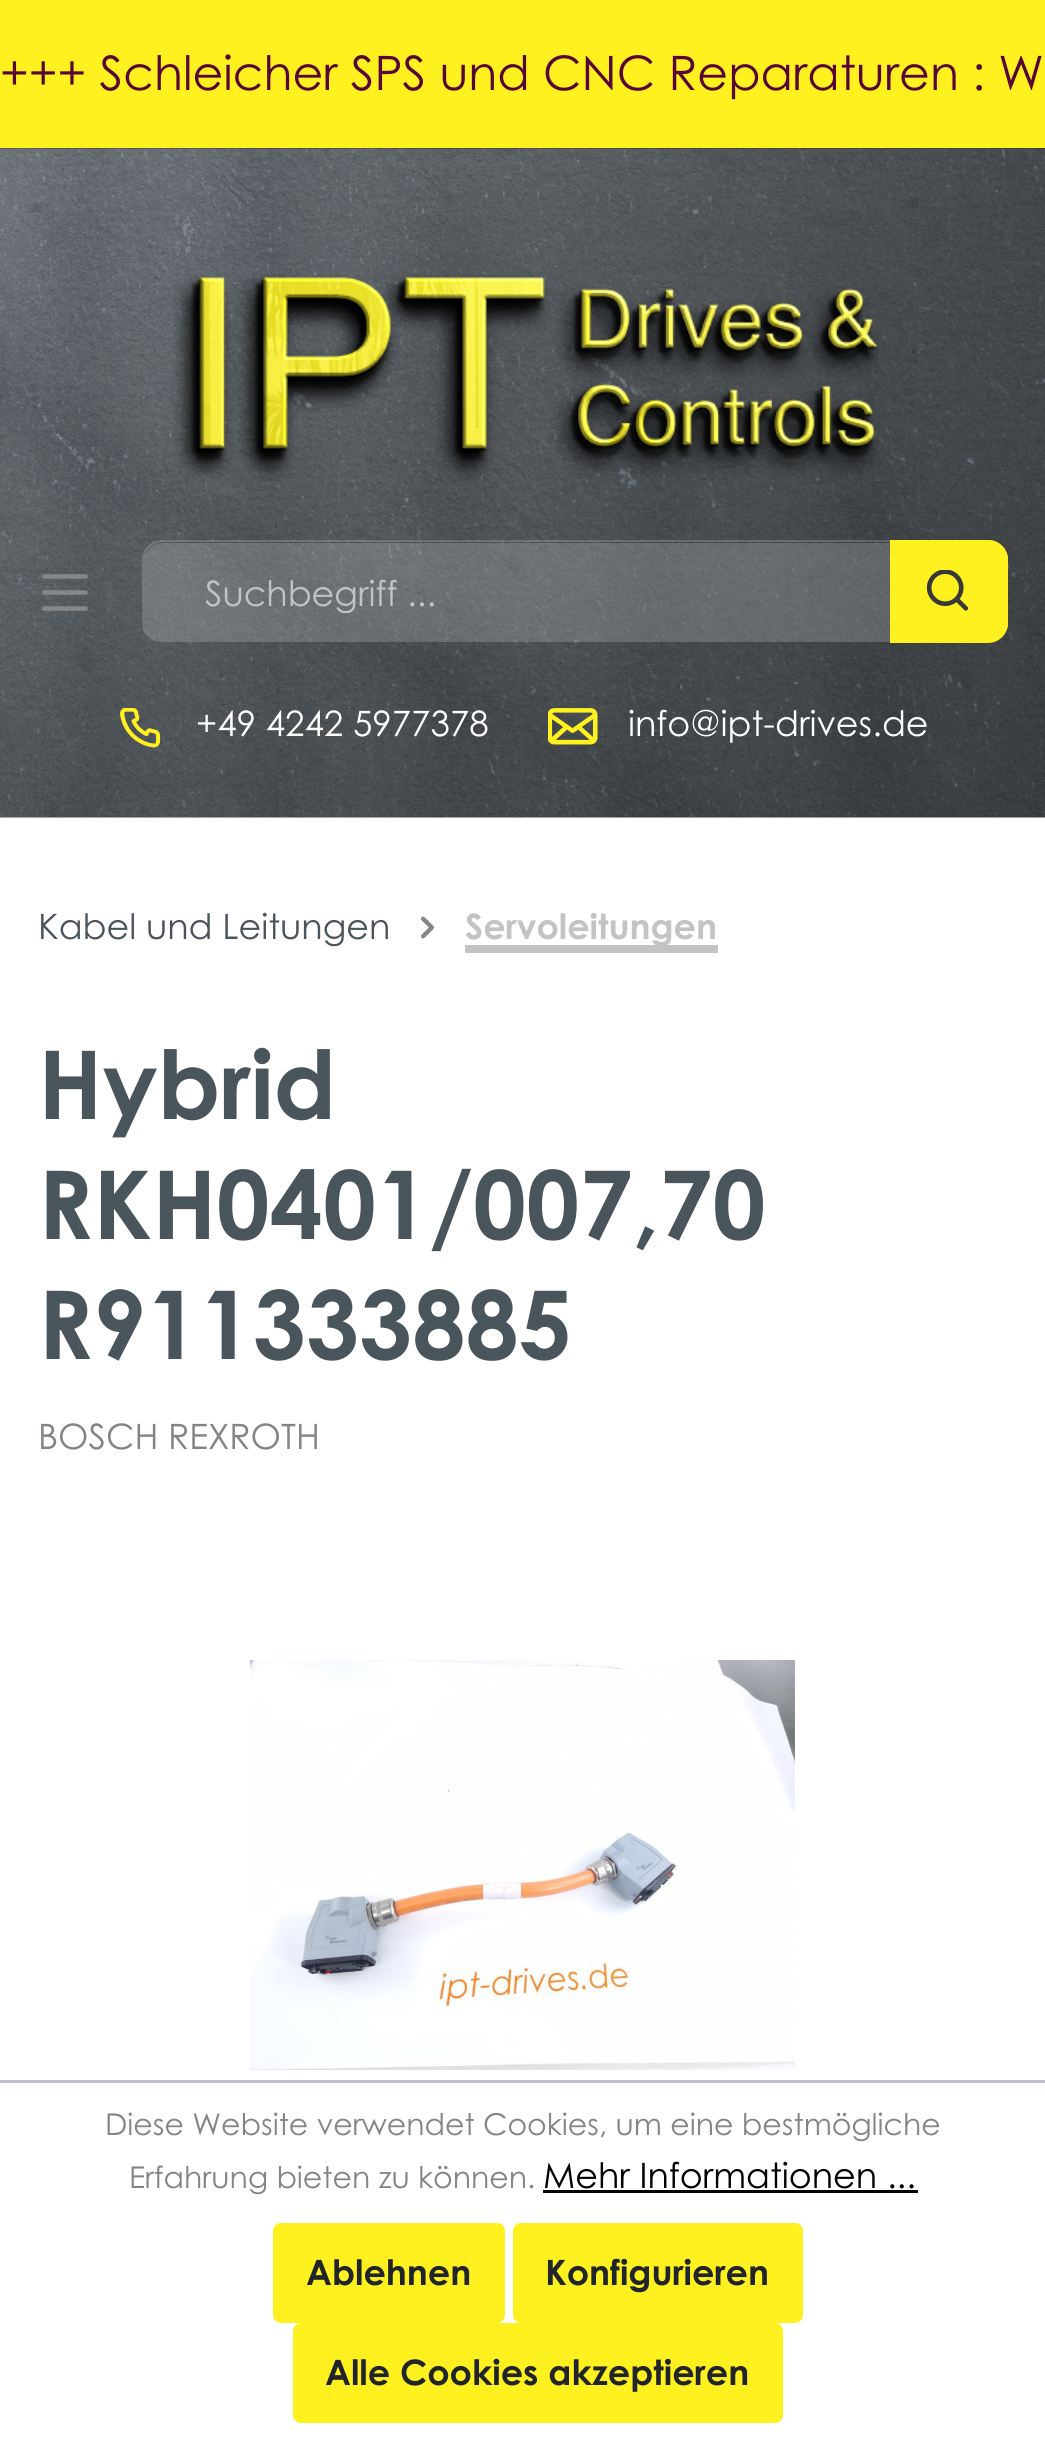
#include <cairo.h>
#include <math.h>
#include <stddef.h>

static cairo_t *ctx;

static void use_color(int r, int g, int b) {
    cairo_set_source_rgb(ctx, r / 255.0, g / 255.0, b / 255.0);
}

static void round_rect(double x, double y, double w, double h, double r) {
    cairo_new_sub_path(ctx);
    cairo_arc(ctx, x + w - r, y + h - r, r, 0, M_PI / 2);
    cairo_arc(ctx, x + r, y + h - r, r, M_PI / 2, M_PI);
    cairo_arc(ctx, x + r, y + r, r, M_PI, 1.5 * M_PI);
    cairo_arc(ctx, x + w - r, y + r, r, 1.5 * M_PI, 2 * M_PI);
    cairo_close_path(ctx);
}

static void picture(const char *path, double x, double y, double w, double h) {
    cairo_surface_t *image = cairo_image_surface_create_from_png(path);
    cairo_save(ctx);
    cairo_set_source_surface(ctx, image, x, y);
    cairo_rectangle(ctx, x, y, w, h);
    cairo_fill(ctx);
    cairo_restore(ctx);
    cairo_surface_destroy(image);
}

int main(void) {
    cairo_surface_t *surface = cairo_image_surface_create(CAIRO_FORMAT_RGB24, 1045, 2442);
    ctx = cairo_create(surface);
    cairo_font_options_t *options = cairo_font_options_create();
    cairo_font_options_set_hint_metrics(options, CAIRO_HINT_METRICS_OFF);
    cairo_font_options_set_hint_style(options, CAIRO_HINT_STYLE_NONE);
    cairo_set_font_options(ctx, options);
    cairo_set_miter_limit(ctx, 4);
    use_color(255, 255, 255);
    cairo_paint(ctx);
    use_color(255, 240, 31);
    cairo_rectangle(ctx, 0, 0, 1045, 148);
    cairo_fill(ctx);
    cairo_select_font_face(ctx, "Century Gothic Medium", CAIRO_FONT_SLANT_NORMAL, CAIRO_FONT_WEIGHT_NORMAL);
    cairo_set_font_size(ctx, 47.5);
    use_color(87, 7, 55);
    cairo_move_to(ctx, 0, 90);
    cairo_show_text(ctx, "+++ Schleicher SPS und CNC Reparaturen : W");
    picture("img1.png", 0, 148, 1045, 670);
    picture("img2.png", 173, 274, 706, 207);
    picture("img3.png", 42, 574, 46, 37);
    cairo_set_source_rgba(ctx, 0.816, 0.816, 0.824, 0.25);
    cairo_new_path(ctx);
    cairo_move_to(ctx, 163, 543);
    cairo_line_to(ctx, 893, 543);
    cairo_line_to(ctx, 893, 640);
    cairo_line_to(ctx, 163, 640);
    cairo_curve_to(ctx, 153, 640, 145, 632, 145, 622);
    cairo_line_to(ctx, 145, 561);
    cairo_curve_to(ctx, 145, 551, 153, 543, 163, 543);
    cairo_close_path(ctx);
    cairo_fill(ctx);
    cairo_set_fill_rule(ctx, CAIRO_FILL_RULE_EVEN_ODD);
    cairo_new_path(ctx);
    cairo_move_to(ctx, 162, 540);
    cairo_line_to(ctx, 892, 540);
    cairo_line_to(ctx, 892, 642);
    cairo_line_to(ctx, 162, 642);
    cairo_curve_to(ctx, 151, 642, 142, 634, 142, 622);
    cairo_line_to(ctx, 142, 560);
    cairo_curve_to(ctx, 142, 549, 151, 540, 162, 540);
    cairo_close_path(ctx);
    cairo_move_to(ctx, 162, 542);
    cairo_line_to(ctx, 892, 542);
    cairo_line_to(ctx, 892, 640);
    cairo_line_to(ctx, 162, 640);
    cairo_curve_to(ctx, 153, 640, 145, 632, 145, 622);
    cairo_line_to(ctx, 145, 560);
    cairo_curve_to(ctx, 145, 550, 153, 542, 162, 542);
    cairo_close_path(ctx);
    cairo_fill(ctx);
    cairo_save(ctx);
    cairo_set_fill_rule(ctx, CAIRO_FILL_RULE_WINDING);
    cairo_rectangle(ctx, 205, 570, 650, 43);
    cairo_clip(ctx);
    cairo_set_font_size(ctx, 35);
    use_color(195, 195, 195);
    cairo_move_to(ctx, 205, 606);
    cairo_show_text(ctx, "Suchbegriff ...");
    cairo_restore(ctx);
    use_color(255, 240, 31);
    cairo_new_path(ctx);
    cairo_move_to(ctx, 890, 540);
    cairo_line_to(ctx, 988, 540);
    cairo_curve_to(ctx, 999, 540, 1008, 549, 1008, 560);
    cairo_line_to(ctx, 1008, 623);
    cairo_curve_to(ctx, 1008, 634, 999, 643, 988, 643);
    cairo_line_to(ctx, 890, 643);
    cairo_close_path(ctx);
    cairo_fill(ctx);
    cairo_new_path(ctx);
    cairo_move_to(ctx, 890, 540);
    cairo_line_to(ctx, 988, 540);
    cairo_curve_to(ctx, 999, 540, 1008, 549, 1008, 560);
    cairo_line_to(ctx, 1008, 622);
    cairo_curve_to(ctx, 1008, 634, 999, 642, 988, 642);
    cairo_line_to(ctx, 890, 642);
    cairo_close_path(ctx);
    cairo_move_to(ctx, 890, 542);
    cairo_line_to(ctx, 988, 542);
    cairo_curve_to(ctx, 997, 542, 1005, 550, 1005, 560);
    cairo_line_to(ctx, 1005, 622);
    cairo_curve_to(ctx, 1005, 632, 997, 640, 988, 640);
    cairo_line_to(ctx, 890, 640);
    cairo_close_path(ctx);
    cairo_fill(ctx);
    picture("img4.png", 926, 570, 43, 41);
    picture("img5.png", 120, 708, 41, 40);
    cairo_set_font_size(ctx, 35);
    use_color(255, 255, 255);
    cairo_move_to(ctx, 196, 736);
    cairo_show_text(ctx, "+49 4242 5977378");
    picture("img6.png", 548, 708, 50, 37);
    cairo_move_to(ctx, 628, 736);
    cairo_show_text(ctx, "info@ipt-drives.de");
    use_color(74, 84, 91);
    cairo_move_to(ctx, 38, 939);
    cairo_show_text(ctx, "Kabel und Leitungen");
    picture("img7.png", 421, 916, 13, 23);
    use_color(195, 195, 195);
    cairo_rectangle(ctx, 465, 945, 253, 8);
    cairo_fill(ctx);
    cairo_select_font_face(ctx, "Century Gothic", CAIRO_FONT_SLANT_NORMAL, CAIRO_FONT_WEIGHT_BOLD);
    cairo_move_to(ctx, 465, 939);
    cairo_show_text(ctx, "Servoleitungen");
    cairo_set_font_size(ctx, 95);
    use_color(74, 84, 91);
    cairo_move_to(ctx, 38, 1119);
    cairo_show_text(ctx, "Hybrid");
    cairo_move_to(ctx, 38, 1239);
    cairo_show_text(ctx, "RKH0401/007,70");
    cairo_move_to(ctx, 38, 1359);
    cairo_show_text(ctx, "R911333885");
    cairo_select_font_face(ctx, "Century Gothic Medium", CAIRO_FONT_SLANT_NORMAL, CAIRO_FONT_WEIGHT_NORMAL);
    cairo_set_font_size(ctx, 35);
    use_color(134, 131, 130);
    cairo_move_to(ctx, 38, 1449);
    cairo_show_text(ctx, "BOSCH REXROTH");
    picture("img8.png", 250, 1660, 545, 410);
    use_color(188, 193, 199);
    cairo_rectangle(ctx, 0, 2080, 1045, 3);
    cairo_fill(ctx);
    cairo_set_font_size(ctx, 30);
    use_color(134, 131, 130);
    cairo_move_to(ctx, 105, 2135);
    cairo_show_text(ctx, "Diese Website verwendet Cookies, um eine bestmögliche");
    cairo_move_to(ctx, 129, 2188);
    cairo_show_text(ctx, "Erfahrung bieten zu können.");
    cairo_set_font_size(ctx, 35);
    use_color(0, 0, 0);
    cairo_move_to(ctx, 543, 2188);
    cairo_show_text(ctx, "Mehr Informationen ...");
    cairo_rectangle(ctx, 543, 2190, 375, 3);
    cairo_fill(ctx);
    use_color(255, 240, 31);
    round_rect(274.5, 2224.5, 229, 97, 6.5);
    cairo_fill_preserve(ctx);
    cairo_set_line_width(ctx, 3);
    cairo_stroke(ctx);
    cairo_select_font_face(ctx, "Century Gothic", CAIRO_FONT_SLANT_NORMAL, CAIRO_FONT_WEIGHT_BOLD);
    use_color(33, 37, 41);
    cairo_move_to(ctx, 306, 2285);
    cairo_show_text(ctx, "Ablehnen");
    use_color(255, 240, 31);
    round_rect(514.5, 2224.5, 287, 97, 6.5);
    cairo_fill_preserve(ctx);
    cairo_stroke(ctx);
    use_color(33, 37, 41);
    cairo_move_to(ctx, 545, 2285);
    cairo_show_text(ctx, "Konfigurieren");
    use_color(255, 240, 31);
    round_rect(294.5, 2324.5, 487, 97, 6.5);
    cairo_fill_preserve(ctx);
    cairo_stroke(ctx);
    use_color(33, 37, 41);
    cairo_move_to(ctx, 325, 2385);
    cairo_show_text(ctx, "Alle Cookies akzeptieren");
    cairo_surface_write_to_png(surface, "result.png");
    cairo_font_options_destroy(options);
    cairo_destroy(ctx);
    cairo_surface_destroy(surface);
    return 0;
}
